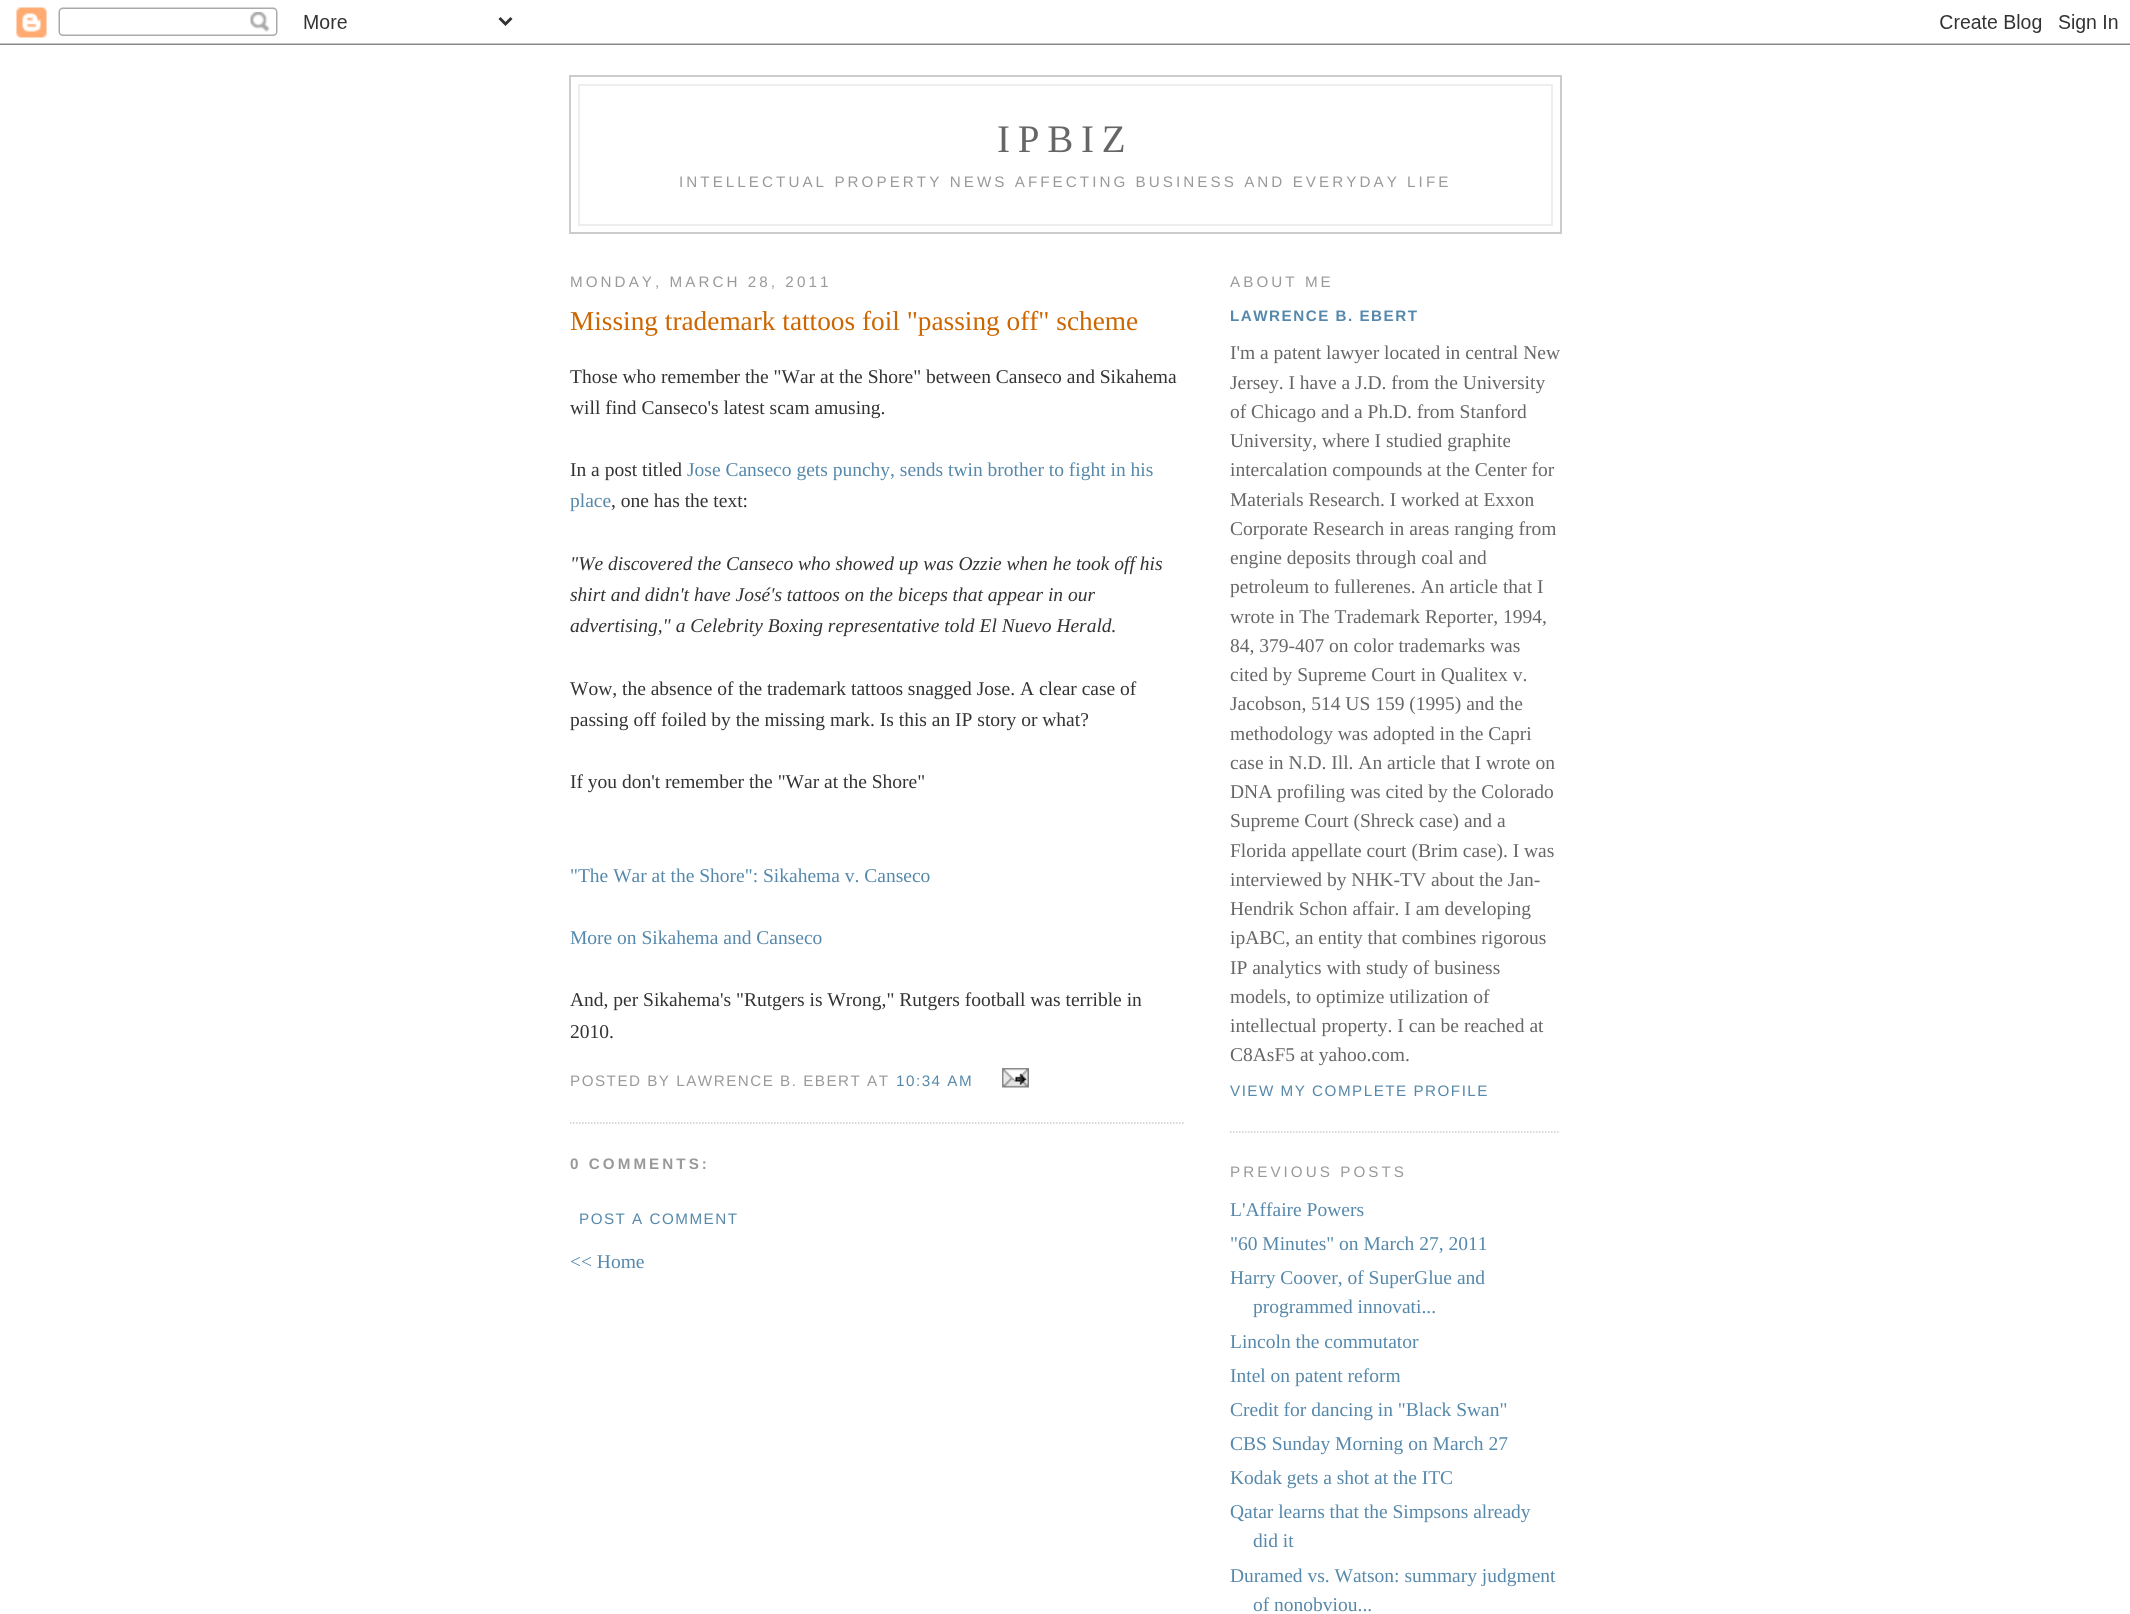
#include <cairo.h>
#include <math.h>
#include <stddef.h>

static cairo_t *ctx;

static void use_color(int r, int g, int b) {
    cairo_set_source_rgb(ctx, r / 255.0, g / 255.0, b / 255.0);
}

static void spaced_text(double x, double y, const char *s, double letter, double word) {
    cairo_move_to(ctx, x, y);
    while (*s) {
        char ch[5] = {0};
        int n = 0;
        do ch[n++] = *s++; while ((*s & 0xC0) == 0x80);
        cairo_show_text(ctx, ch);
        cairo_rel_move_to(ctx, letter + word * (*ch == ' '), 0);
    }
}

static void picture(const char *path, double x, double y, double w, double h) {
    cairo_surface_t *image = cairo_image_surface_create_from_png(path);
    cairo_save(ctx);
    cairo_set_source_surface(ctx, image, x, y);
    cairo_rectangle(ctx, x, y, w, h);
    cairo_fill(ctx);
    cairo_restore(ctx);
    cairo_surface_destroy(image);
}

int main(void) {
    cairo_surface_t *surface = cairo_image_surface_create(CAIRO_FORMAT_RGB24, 2130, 1614);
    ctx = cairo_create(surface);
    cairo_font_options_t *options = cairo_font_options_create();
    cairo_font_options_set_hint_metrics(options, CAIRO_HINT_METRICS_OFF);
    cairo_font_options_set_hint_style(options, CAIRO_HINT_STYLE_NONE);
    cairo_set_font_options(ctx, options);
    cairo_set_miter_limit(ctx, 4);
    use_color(255, 255, 255);
    cairo_paint(ctx);
    picture("img1.png", 0, 7, 2130, 38);
    cairo_rectangle(ctx, 570, 76, 991, 157);
    use_color(204, 204, 204);
    cairo_stroke(ctx);
    use_color(238, 238, 238);
    cairo_rectangle(ctx, 578, 84, 975, 2);
    cairo_fill(ctx);
    cairo_rectangle(ctx, 1551, 84, 2, 141);
    cairo_fill(ctx);
    cairo_rectangle(ctx, 578, 84, 2, 89);
    cairo_fill(ctx);
    cairo_select_font_face(ctx, "Liberation Serif", CAIRO_FONT_SLANT_NORMAL, CAIRO_FONT_WEIGHT_NORMAL);
    cairo_set_font_size(ctx, 39);
    use_color(102, 102, 102);
    spaced_text(997, 152, "IPBIZ", 7.75, 0);
    use_color(238, 238, 238);
    cairo_rectangle(ctx, 578, 224, 975, 2);
    cairo_fill(ctx);
    cairo_rectangle(ctx, 578, 173, 2, 52);
    cairo_fill(ctx);
    cairo_select_font_face(ctx, "Liberation Sans", CAIRO_FONT_SLANT_NORMAL, CAIRO_FONT_WEIGHT_NORMAL);
    cairo_set_font_size(ctx, 15.2);
    use_color(153, 153, 153);
    spaced_text(679, 187, "INTELLECTUAL PROPERTY NEWS AFFECTING BUSINESS AND EVERYDAY LIFE", 3.05, 0);
    spaced_text(570, 287, "MONDAY, MARCH 28, 2011", 3.05, 0);
    cairo_new_path(ctx);
    cairo_move_to(ctx, 570, 1123);
    cairo_line_to(ctx, 1185, 1123);
    use_color(204, 204, 204);
    cairo_set_line_width(ctx, 1.5);
    cairo_set_dash(ctx, (double[]){1.5, 1.5}, 2, 0);
    cairo_stroke(ctx);
    cairo_select_font_face(ctx, "Liberation Serif", CAIRO_FONT_SLANT_NORMAL, CAIRO_FONT_WEIGHT_NORMAL);
    cairo_set_font_size(ctx, 27.3);
    use_color(204, 102, 0);
    cairo_move_to(ctx, 570, 330);
    cairo_show_text(ctx, "Missing trademark tattoos foil \"passing off\" scheme");
    cairo_set_font_size(ctx, 19.5);
    use_color(51, 51, 51);
    cairo_move_to(ctx, 570, 383);
    cairo_show_text(ctx, "Those who remember the \"War at the Shore\" between Canseco and Sikahema");
    cairo_move_to(ctx, 570, 414);
    cairo_show_text(ctx, "will find Canseco's latest scam amusing.");
    cairo_move_to(ctx, 570, 476);
    cairo_show_text(ctx, "In a post titled");
    use_color(85, 136, 170);
    cairo_move_to(ctx, 687, 476);
    cairo_show_text(ctx, "Jose Canseco gets punchy, sends twin brother to fight in his");
    cairo_move_to(ctx, 570, 507);
    cairo_show_text(ctx, "place");
    use_color(51, 51, 51);
    cairo_move_to(ctx, 611, 507);
    cairo_show_text(ctx, ", one has the text:");
    cairo_select_font_face(ctx, "Liberation Serif", CAIRO_FONT_SLANT_ITALIC, CAIRO_FONT_WEIGHT_NORMAL);
    cairo_move_to(ctx, 570, 570);
    cairo_show_text(ctx, "\"We discovered the Canseco who showed up was Ozzie when he took off his");
    cairo_move_to(ctx, 570, 601);
    cairo_show_text(ctx, "shirt and didn't have José's tattoos on the biceps that appear in our");
    cairo_move_to(ctx, 570, 632);
    cairo_show_text(ctx, "advertising,\" a Celebrity Boxing representative told El Nuevo Herald.");
    cairo_select_font_face(ctx, "Liberation Serif", CAIRO_FONT_SLANT_NORMAL, CAIRO_FONT_WEIGHT_NORMAL);
    cairo_move_to(ctx, 570, 695);
    cairo_show_text(ctx, "Wow, the absence of the trademark tattoos snagged Jose. A clear case of");
    cairo_move_to(ctx, 570, 726);
    cairo_show_text(ctx, "passing off foiled by the missing mark. Is this an IP story or what?");
    cairo_move_to(ctx, 570, 788);
    cairo_show_text(ctx, "If you don't remember the \"War at the Shore\"");
    use_color(85, 136, 170);
    cairo_move_to(ctx, 570, 882);
    cairo_show_text(ctx, "\"The War at the Shore\": Sikahema v. Canseco");
    cairo_move_to(ctx, 570, 944);
    cairo_show_text(ctx, "More on Sikahema and Canseco");
    use_color(51, 51, 51);
    cairo_move_to(ctx, 570, 1006);
    cairo_show_text(ctx, "And, per Sikahema's \"Rutgers is Wrong,\" Rutgers football was terrible in");
    cairo_move_to(ctx, 570, 1038);
    cairo_show_text(ctx, "2010.");
    cairo_select_font_face(ctx, "Liberation Sans", CAIRO_FONT_SLANT_NORMAL, CAIRO_FONT_WEIGHT_NORMAL);
    cairo_set_font_size(ctx, 15.2);
    use_color(153, 153, 153);
    spaced_text(570, 1086, "POSTED BY LAWRENCE B. EBERT AT", 1.5, 0);
    use_color(85, 136, 170);
    spaced_text(896, 1086, "10:34 AM", 1.5, 0);
    picture("img2.png", 1002, 1068, 27, 20);
    cairo_select_font_face(ctx, "Liberation Sans", CAIRO_FONT_SLANT_NORMAL, CAIRO_FONT_WEIGHT_BOLD);
    use_color(153, 153, 153);
    spaced_text(570, 1169, "0 COMMENTS:", 3.05, 0);
    cairo_select_font_face(ctx, "Liberation Sans", CAIRO_FONT_SLANT_NORMAL, CAIRO_FONT_WEIGHT_NORMAL);
    use_color(85, 136, 170);
    spaced_text(579, 1224, "POST A COMMENT", 1.5, 0);
    cairo_select_font_face(ctx, "Liberation Serif", CAIRO_FONT_SLANT_NORMAL, CAIRO_FONT_WEIGHT_NORMAL);
    cairo_set_font_size(ctx, 19.5);
    cairo_move_to(ctx, 570, 1268);
    cairo_show_text(ctx, "<< Home");
    cairo_new_path(ctx);
    cairo_move_to(ctx, 1230, 1132);
    cairo_line_to(ctx, 1560, 1132);
    use_color(204, 204, 204);
    cairo_stroke(ctx);
    cairo_select_font_face(ctx, "Liberation Sans", CAIRO_FONT_SLANT_NORMAL, CAIRO_FONT_WEIGHT_NORMAL);
    cairo_set_font_size(ctx, 15.2);
    use_color(153, 153, 153);
    spaced_text(1230, 287, "ABOUT ME", 3.05, 0);
    cairo_select_font_face(ctx, "Liberation Sans", CAIRO_FONT_SLANT_NORMAL, CAIRO_FONT_WEIGHT_BOLD);
    use_color(85, 136, 170);
    spaced_text(1230, 321, "LAWRENCE B. EBERT", 1.5, 0);
    cairo_select_font_face(ctx, "Liberation Serif", CAIRO_FONT_SLANT_NORMAL, CAIRO_FONT_WEIGHT_NORMAL);
    cairo_set_font_size(ctx, 19.5);
    use_color(102, 102, 102);
    cairo_move_to(ctx, 1230, 359);
    cairo_show_text(ctx, "I'm a patent lawyer located in central New");
    cairo_move_to(ctx, 1230, 389);
    cairo_show_text(ctx, "Jersey. I have a J.D. from the University");
    cairo_move_to(ctx, 1230, 418);
    cairo_show_text(ctx, "of Chicago and a Ph.D. from Stanford");
    cairo_move_to(ctx, 1230, 447);
    cairo_show_text(ctx, "University, where I studied graphite");
    cairo_move_to(ctx, 1230, 476);
    cairo_show_text(ctx, "intercalation compounds at the Center for");
    cairo_move_to(ctx, 1230, 506);
    cairo_show_text(ctx, "Materials Research. I worked at Exxon");
    cairo_move_to(ctx, 1230, 535);
    cairo_show_text(ctx, "Corporate Research in areas ranging from");
    cairo_move_to(ctx, 1230, 564);
    cairo_show_text(ctx, "engine deposits through coal and");
    cairo_move_to(ctx, 1230, 593);
    cairo_show_text(ctx, "petroleum to fullerenes. An article that I");
    cairo_move_to(ctx, 1230, 623);
    cairo_show_text(ctx, "wrote in The Trademark Reporter, 1994,");
    cairo_move_to(ctx, 1230, 652);
    cairo_show_text(ctx, "84, 379-407 on color trademarks was");
    cairo_move_to(ctx, 1230, 681);
    cairo_show_text(ctx, "cited by Supreme Court in Qualitex v.");
    cairo_move_to(ctx, 1230, 710);
    cairo_show_text(ctx, "Jacobson, 514 US 159 (1995) and the");
    cairo_move_to(ctx, 1230, 740);
    cairo_show_text(ctx, "methodology was adopted in the Capri");
    cairo_move_to(ctx, 1230, 769);
    cairo_show_text(ctx, "case in N.D. Ill. An article that I wrote on");
    cairo_move_to(ctx, 1230, 798);
    cairo_show_text(ctx, "DNA profiling was cited by the Colorado");
    cairo_move_to(ctx, 1230, 827);
    cairo_show_text(ctx, "Supreme Court (Shreck case) and a");
    cairo_move_to(ctx, 1230, 857);
    cairo_show_text(ctx, "Florida appellate court (Brim case). I was");
    cairo_move_to(ctx, 1230, 886);
    cairo_show_text(ctx, "interviewed by NHK-TV about the Jan-");
    cairo_move_to(ctx, 1230, 915);
    cairo_show_text(ctx, "Hendrik Schon affair. I am developing");
    cairo_move_to(ctx, 1230, 944);
    cairo_show_text(ctx, "ipABC, an entity that combines rigorous");
    cairo_move_to(ctx, 1230, 974);
    cairo_show_text(ctx, "IP analytics with study of business");
    cairo_move_to(ctx, 1230, 1003);
    cairo_show_text(ctx, "models, to optimize utilization of");
    cairo_move_to(ctx, 1230, 1032);
    cairo_show_text(ctx, "intellectual property. I can be reached at");
    cairo_move_to(ctx, 1230, 1061);
    cairo_show_text(ctx, "C8AsF5 at yahoo.com.");
    cairo_select_font_face(ctx, "Liberation Sans", CAIRO_FONT_SLANT_NORMAL, CAIRO_FONT_WEIGHT_NORMAL);
    cairo_set_font_size(ctx, 15.2);
    use_color(85, 136, 170);
    spaced_text(1230, 1096, "VIEW MY COMPLETE PROFILE", 1.5, 0);
    use_color(153, 153, 153);
    spaced_text(1230, 1177, "PREVIOUS POSTS", 3.05, 0);
    cairo_select_font_face(ctx, "Liberation Serif", CAIRO_FONT_SLANT_NORMAL, CAIRO_FONT_WEIGHT_NORMAL);
    cairo_set_font_size(ctx, 19.5);
    use_color(85, 136, 170);
    cairo_move_to(ctx, 1230, 1216);
    cairo_show_text(ctx, "L'Affaire Powers");
    cairo_move_to(ctx, 1230, 1250);
    cairo_show_text(ctx, "\"60 Minutes\" on March 27, 2011");
    cairo_move_to(ctx, 1230, 1284);
    cairo_show_text(ctx, "Harry Coover, of SuperGlue and");
    cairo_move_to(ctx, 1253, 1313);
    cairo_show_text(ctx, "programmed innovati...");
    cairo_move_to(ctx, 1230, 1348);
    cairo_show_text(ctx, "Lincoln the commutator");
    cairo_move_to(ctx, 1230, 1382);
    cairo_show_text(ctx, "Intel on patent reform");
    cairo_move_to(ctx, 1230, 1416);
    cairo_show_text(ctx, "Credit for dancing in \"Black Swan\"");
    cairo_move_to(ctx, 1230, 1450);
    cairo_show_text(ctx, "CBS Sunday Morning on March 27");
    cairo_move_to(ctx, 1230, 1484);
    cairo_show_text(ctx, "Kodak gets a shot at the ITC");
    cairo_move_to(ctx, 1230, 1518);
    cairo_show_text(ctx, "Qatar learns that the Simpsons already");
    cairo_move_to(ctx, 1253, 1547);
    cairo_show_text(ctx, "did it");
    cairo_move_to(ctx, 1230, 1582);
    cairo_show_text(ctx, "Duramed vs. Watson: summary judgment");
    cairo_move_to(ctx, 1253, 1611);
    cairo_show_text(ctx, "of nonobviou...");
    cairo_surface_write_to_png(surface, "result.png");
    cairo_font_options_destroy(options);
    cairo_destroy(ctx);
    cairo_surface_destroy(surface);
    return 0;
}
